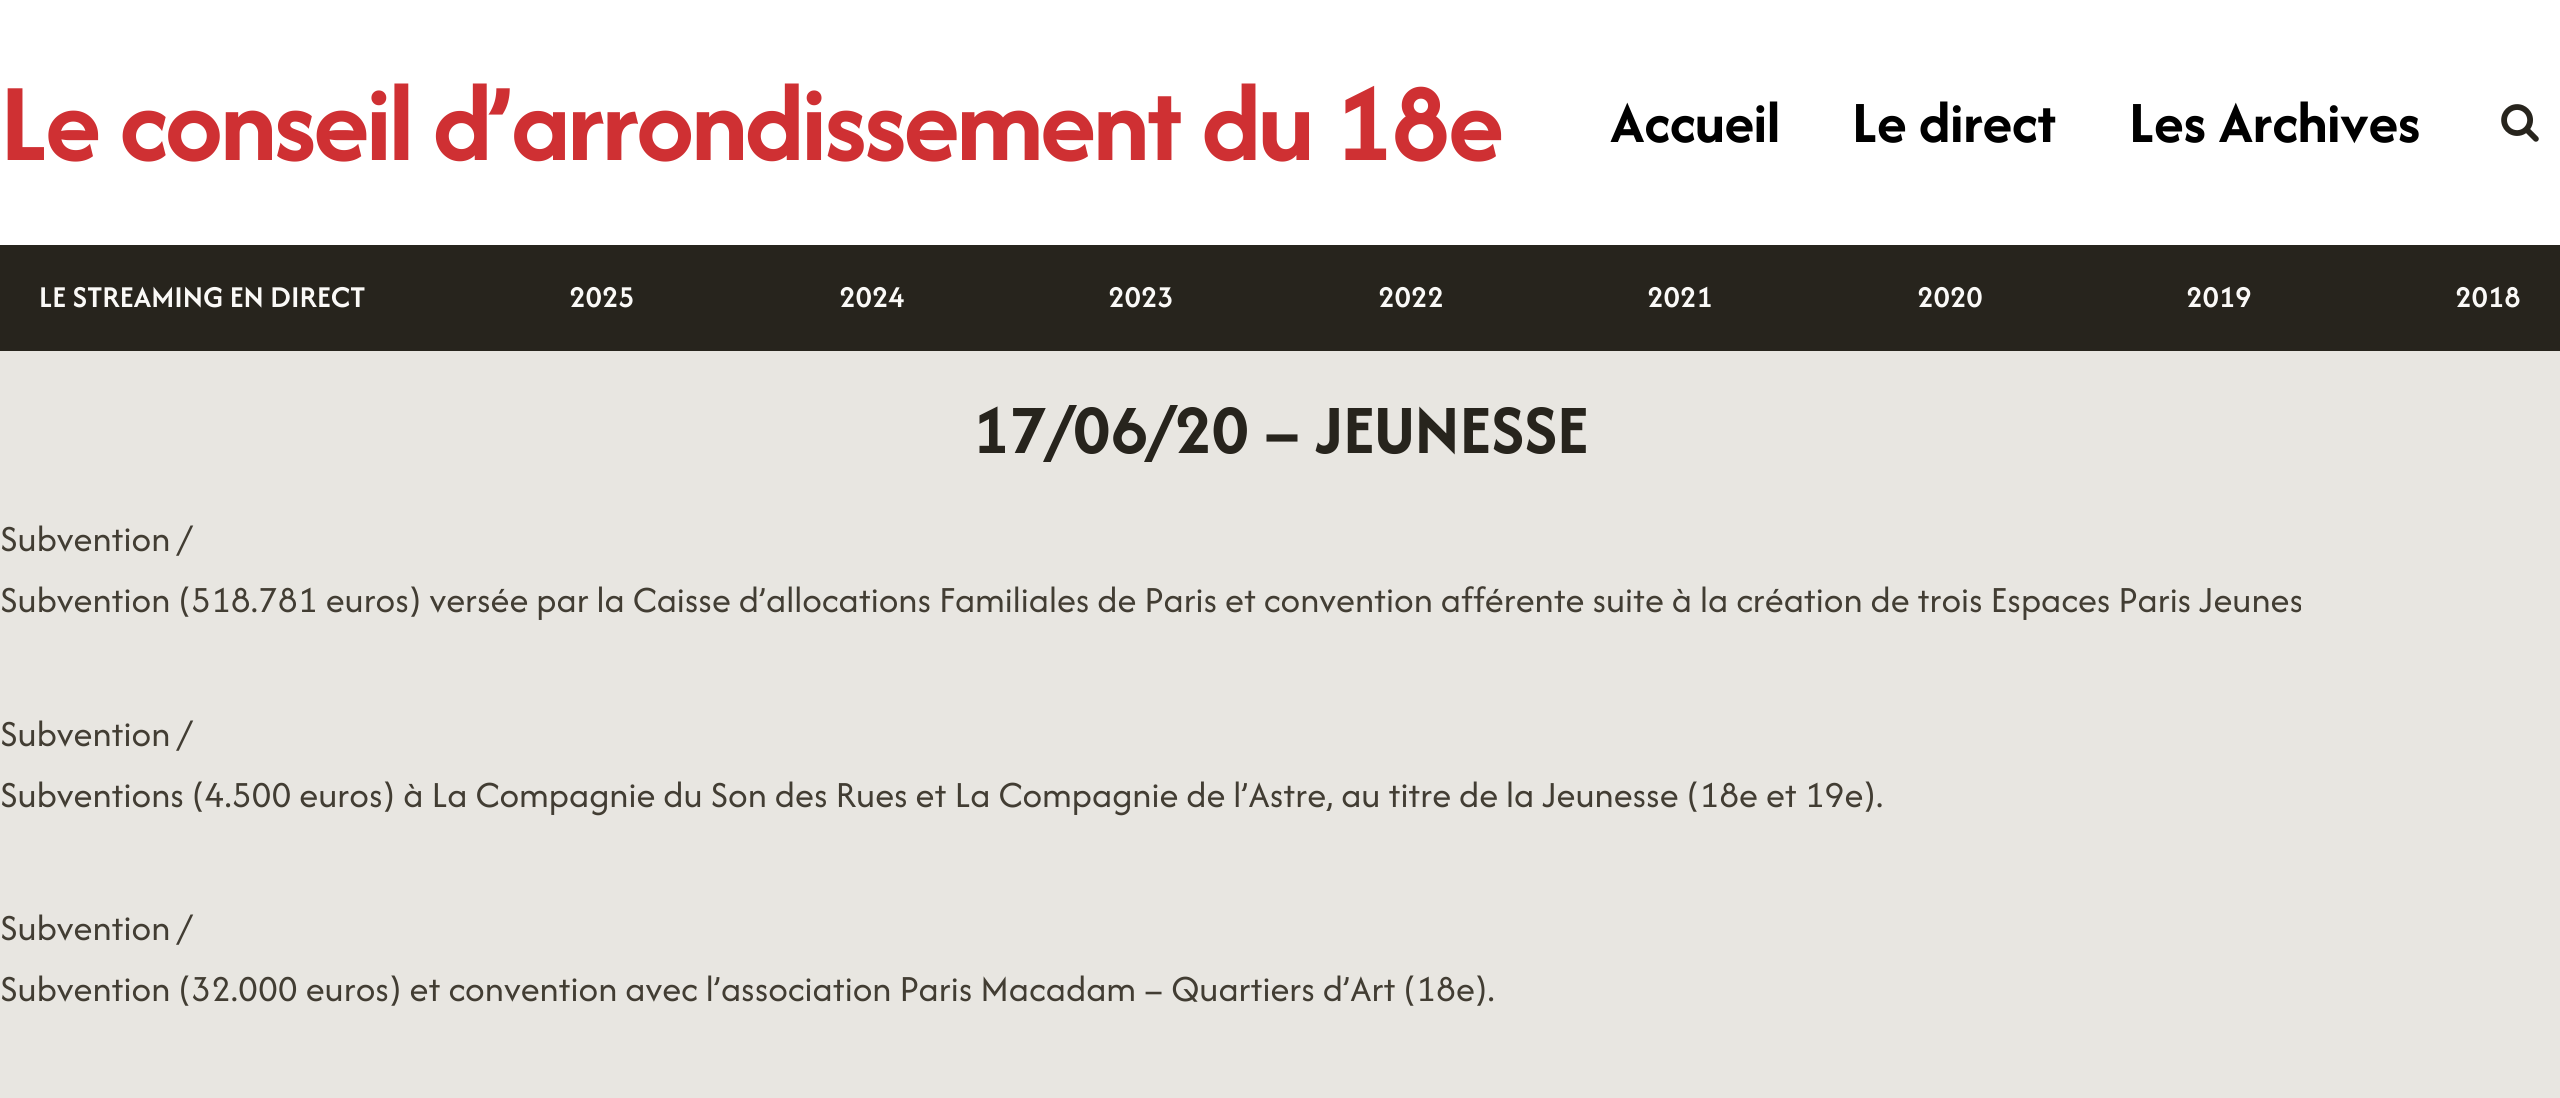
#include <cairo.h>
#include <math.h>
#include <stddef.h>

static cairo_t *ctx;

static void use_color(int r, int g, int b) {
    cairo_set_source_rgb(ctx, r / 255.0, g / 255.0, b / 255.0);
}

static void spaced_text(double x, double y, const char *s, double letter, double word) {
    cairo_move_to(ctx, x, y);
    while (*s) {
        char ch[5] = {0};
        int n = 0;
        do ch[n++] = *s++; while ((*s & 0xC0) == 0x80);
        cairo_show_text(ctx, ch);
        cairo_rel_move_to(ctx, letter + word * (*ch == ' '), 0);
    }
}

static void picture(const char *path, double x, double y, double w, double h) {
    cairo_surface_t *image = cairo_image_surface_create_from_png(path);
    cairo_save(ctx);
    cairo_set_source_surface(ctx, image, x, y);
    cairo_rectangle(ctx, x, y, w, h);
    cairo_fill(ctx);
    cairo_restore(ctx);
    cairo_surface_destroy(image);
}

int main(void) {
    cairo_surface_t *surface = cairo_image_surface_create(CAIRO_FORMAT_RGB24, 2560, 1098);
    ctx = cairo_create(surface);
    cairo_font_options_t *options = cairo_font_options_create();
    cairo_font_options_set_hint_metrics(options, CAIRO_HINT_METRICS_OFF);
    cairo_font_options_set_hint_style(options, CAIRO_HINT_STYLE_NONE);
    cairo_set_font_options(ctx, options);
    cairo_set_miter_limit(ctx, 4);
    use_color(232, 230, 225);
    cairo_paint(ctx);
    use_color(255, 255, 255);
    cairo_rectangle(ctx, 0, 0, 2560, 245);
    cairo_fill(ctx);
    cairo_select_font_face(ctx, "Afacad", CAIRO_FONT_SLANT_NORMAL, CAIRO_FONT_WEIGHT_BOLD);
    cairo_set_font_size(ctx, 114.75);
    use_color(207, 48, 51);
    spaced_text(0, 160, "Le conseil d’arrondissement du 18e", -2.3, 0);
    cairo_set_font_size(ctx, 60.75);
    use_color(0, 0, 0);
    cairo_move_to(ctx, 1610, 142);
    cairo_show_text(ctx, "Accueil");
    cairo_move_to(ctx, 1852, 142);
    cairo_show_text(ctx, "Le direct");
    cairo_move_to(ctx, 2129, 142);
    cairo_show_text(ctx, "Les Archives");
    picture("img1.png", 2501, 104, 38, 38);
    use_color(39, 36, 29);
    cairo_rectangle(ctx, 0, 245, 2560, 106);
    cairo_fill(ctx);
    cairo_select_font_face(ctx, "Afacad SemiBold", CAIRO_FONT_SLANT_NORMAL, CAIRO_FONT_WEIGHT_NORMAL);
    cairo_set_font_size(ctx, 31.5);
    use_color(250, 249, 247);
    cairo_move_to(ctx, 39, 307);
    cairo_show_text(ctx, "LE STREAMING EN DIRECT");
    cairo_move_to(ctx, 569, 307);
    cairo_show_text(ctx, "2025");
    cairo_move_to(ctx, 839, 307);
    cairo_show_text(ctx, "2024");
    cairo_move_to(ctx, 1108, 307);
    cairo_show_text(ctx, "2023");
    cairo_move_to(ctx, 1378, 307);
    cairo_show_text(ctx, "2022");
    cairo_move_to(ctx, 1647, 307);
    cairo_show_text(ctx, "2021");
    cairo_move_to(ctx, 1917, 307);
    cairo_show_text(ctx, "2020");
    cairo_move_to(ctx, 2186, 307);
    cairo_show_text(ctx, "2019");
    cairo_move_to(ctx, 2455, 307);
    cairo_show_text(ctx, "2018");
    cairo_select_font_face(ctx, "Afacad", CAIRO_FONT_SLANT_NORMAL, CAIRO_FONT_WEIGHT_BOLD);
    cairo_set_font_size(ctx, 72);
    use_color(39, 36, 29);
    cairo_move_to(ctx, 972, 453);
    cairo_show_text(ctx, "17/06/20 – JEUNESSE");
    cairo_select_font_face(ctx, "Afacad", CAIRO_FONT_SLANT_NORMAL, CAIRO_FONT_WEIGHT_NORMAL);
    cairo_set_font_size(ctx, 38.25);
    use_color(66, 61, 51);
    cairo_move_to(ctx, 0, 551);
    cairo_show_text(ctx, "Subvention /");
    cairo_move_to(ctx, 0, 612);
    cairo_show_text(ctx, "Subvention (518.781 euros) versée par la Caisse d’allocations Familiales de Paris et convention afférente suite à la création de trois Espaces Paris Jeunes");
    cairo_move_to(ctx, 0, 746);
    cairo_show_text(ctx, "Subvention /");
    cairo_move_to(ctx, 0, 807);
    cairo_show_text(ctx, "Subventions (4.500 euros) à La Compagnie du Son des Rues et La Compagnie de l’Astre, au titre de la Jeunesse (18e et 19e).");
    cairo_move_to(ctx, 0, 940);
    cairo_show_text(ctx, "Subvention /");
    cairo_move_to(ctx, 0, 1001);
    cairo_show_text(ctx, "Subvention (32.000 euros) et convention avec l’association Paris Macadam – Quartiers d’Art (18e).");
    cairo_surface_write_to_png(surface, "result.png");
    cairo_font_options_destroy(options);
    cairo_destroy(ctx);
    cairo_surface_destroy(surface);
    return 0;
}
